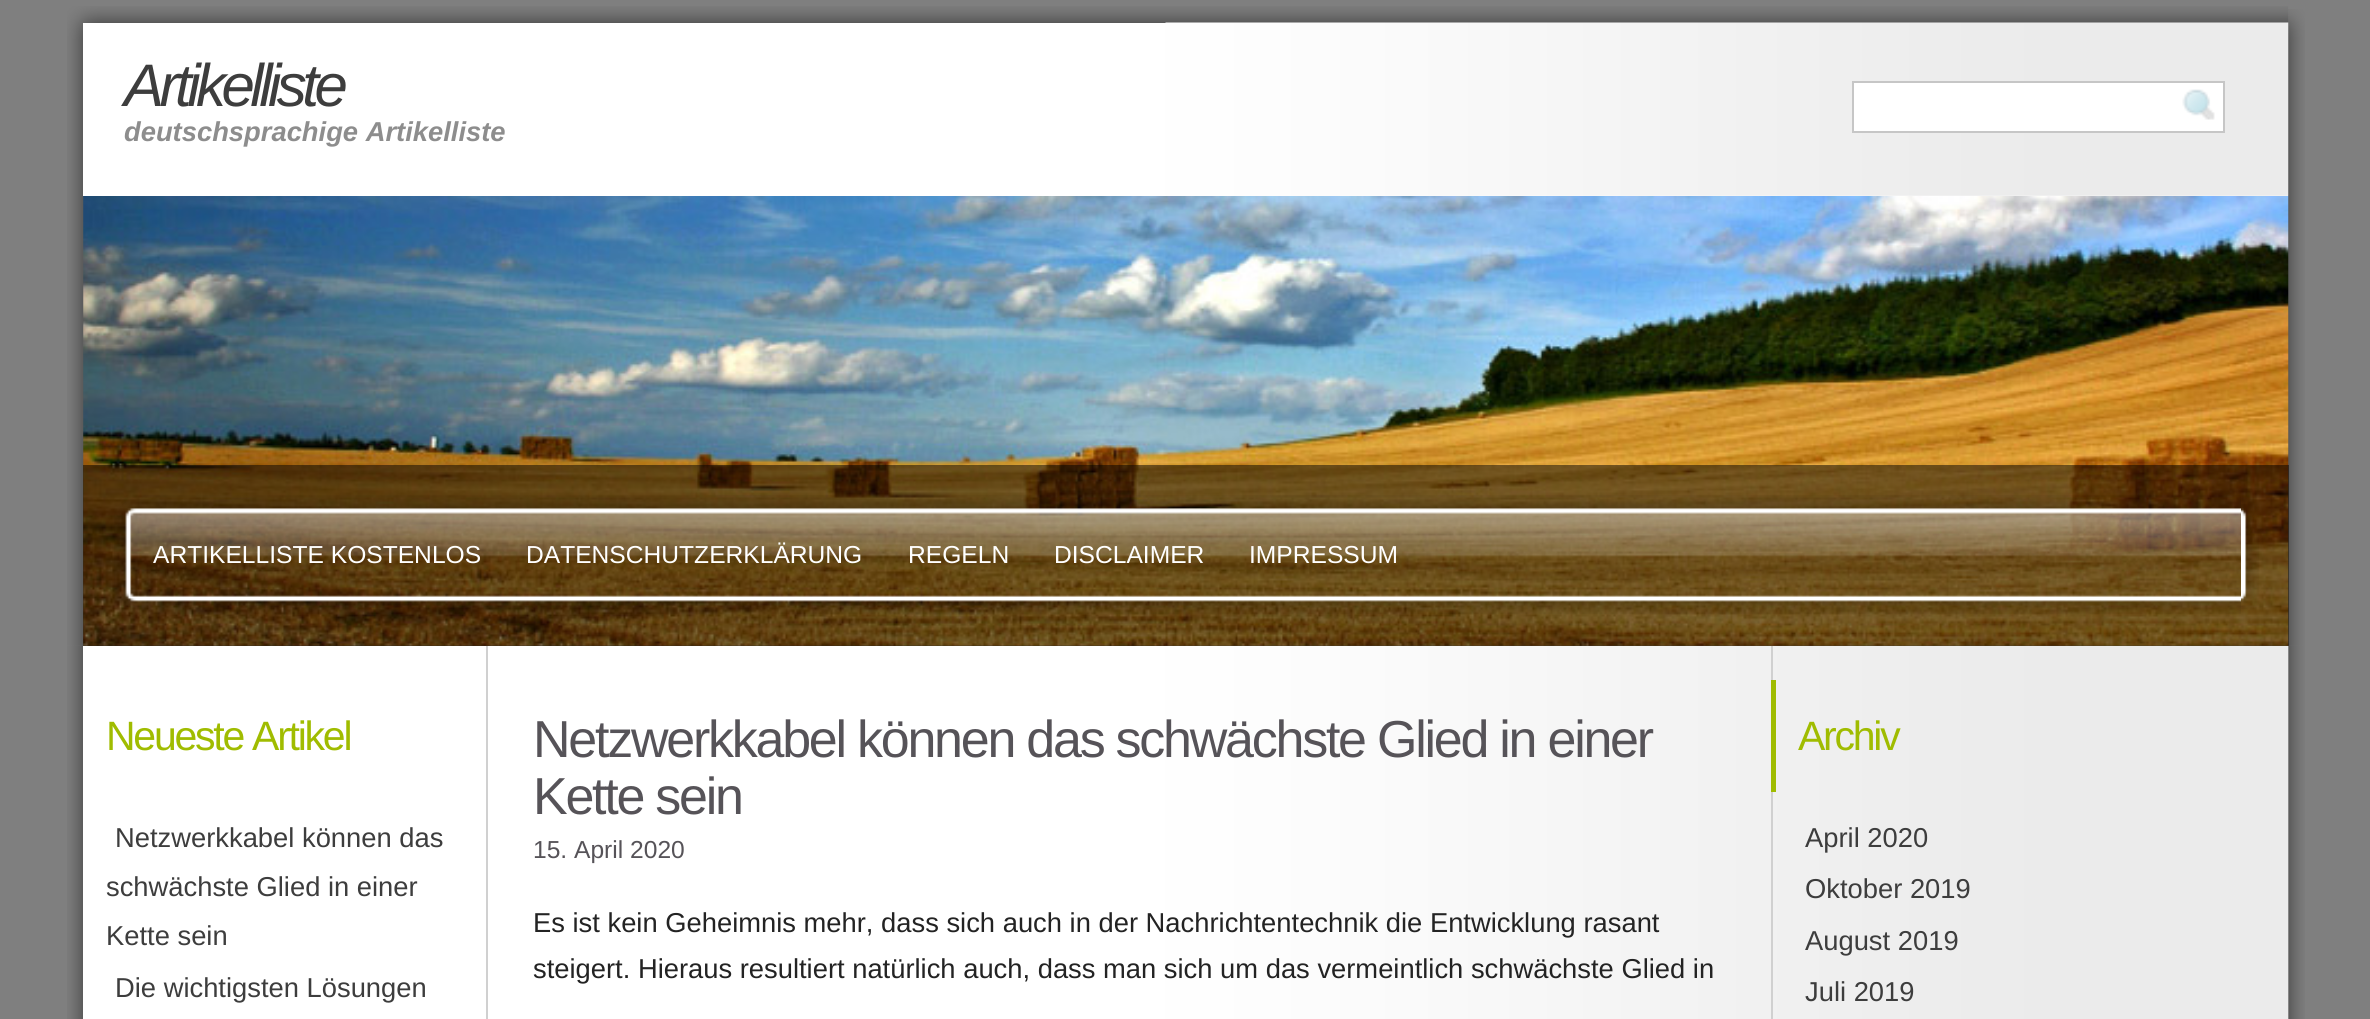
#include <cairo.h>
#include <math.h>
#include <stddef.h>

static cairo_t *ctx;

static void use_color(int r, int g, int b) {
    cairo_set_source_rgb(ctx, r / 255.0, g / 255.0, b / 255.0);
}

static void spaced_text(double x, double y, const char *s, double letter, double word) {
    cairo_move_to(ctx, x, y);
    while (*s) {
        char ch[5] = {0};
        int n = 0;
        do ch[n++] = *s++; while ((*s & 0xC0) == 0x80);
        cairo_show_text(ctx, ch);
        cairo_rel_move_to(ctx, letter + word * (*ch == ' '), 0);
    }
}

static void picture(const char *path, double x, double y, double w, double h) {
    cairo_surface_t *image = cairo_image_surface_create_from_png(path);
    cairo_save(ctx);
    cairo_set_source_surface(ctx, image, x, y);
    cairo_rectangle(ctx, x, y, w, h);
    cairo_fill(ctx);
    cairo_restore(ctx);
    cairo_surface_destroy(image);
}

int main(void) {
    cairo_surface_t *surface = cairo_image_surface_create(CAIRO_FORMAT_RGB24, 2370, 1019);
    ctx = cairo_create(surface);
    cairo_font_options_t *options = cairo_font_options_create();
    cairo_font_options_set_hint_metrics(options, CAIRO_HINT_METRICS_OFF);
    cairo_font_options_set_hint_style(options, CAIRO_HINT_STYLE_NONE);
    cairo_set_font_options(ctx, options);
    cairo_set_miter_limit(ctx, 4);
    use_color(127, 127, 127);
    cairo_paint(ctx);
    picture("img1.png", 2288, 9, 17, 637);
    picture("img2.png", 67, 6, 2222, 640);
    picture("img8.png", 2288, 645, 17, 374);
    picture("img9.png", 67, 645, 39, 374);
    use_color(255, 255, 255);
    cairo_rectangle(ctx, 83, 646, 1083, 373);
    cairo_fill(ctx);
    picture("img10.png", 1165, 645, 1124, 374);
    picture("img5.png", 83, 195, 2206, 451);
    cairo_rectangle(ctx, 83, 23, 2205, 173);
    cairo_fill(ctx);
    picture("img3.png", 1165, 22, 1124, 174);
    cairo_select_font_face(ctx, "Liberation Sans", CAIRO_FONT_SLANT_ITALIC, CAIRO_FONT_WEIGHT_NORMAL);
    cairo_set_font_size(ctx, 60);
    use_color(61, 61, 61);
    spaced_text(124, 106, "Artikelliste", -4.5, 0);
    use_color(255, 255, 255);
    cairo_rectangle(ctx, 1854, 83, 369, 48);
    cairo_fill(ctx);
    picture("img4.png", 2182, 89, 33, 31);
    cairo_rectangle(ctx, 1853, 82, 371, 50);
    use_color(198, 198, 198);
    cairo_stroke(ctx);
    cairo_select_font_face(ctx, "Liberation Sans", CAIRO_FONT_SLANT_ITALIC, CAIRO_FONT_WEIGHT_BOLD);
    cairo_set_font_size(ctx, 27.35);
    use_color(141, 141, 141);
    cairo_move_to(ctx, 124, 141);
    cairo_show_text(ctx, "deutschsprachige Artikelliste");
    cairo_set_source_rgba(ctx, 0, 0, 0, 0.5);
    cairo_rectangle(ctx, 83, 465, 2206, 181);
    cairo_fill(ctx);
    picture("img6.png", 114, 495, 2127, 119);
    cairo_select_font_face(ctx, "Liberation Sans", CAIRO_FONT_SLANT_NORMAL, CAIRO_FONT_WEIGHT_NORMAL);
    cairo_set_font_size(ctx, 24.6);
    use_color(255, 255, 255);
    cairo_move_to(ctx, 153, 563);
    cairo_show_text(ctx, "ARTIKELLISTE KOSTENLOS");
    cairo_move_to(ctx, 526, 563);
    cairo_show_text(ctx, "DATENSCHUTZERKLÄRUNG");
    cairo_move_to(ctx, 908, 563);
    cairo_show_text(ctx, "REGELN");
    cairo_move_to(ctx, 1054, 563);
    cairo_show_text(ctx, "DISCLAIMER");
    cairo_move_to(ctx, 1249, 563);
    cairo_show_text(ctx, "IMPRESSUM");
    picture("img7.png", 2241, 504, 18, 105);
    use_color(208, 208, 208);
    cairo_rectangle(ctx, 486, 646, 2, 373);
    cairo_fill(ctx);
    cairo_set_font_size(ctx, 41);
    use_color(160, 188, 0);
    spaced_text(106, 750, "Neueste Artikel", -2.25, 0);
    cairo_set_font_size(ctx, 27.35);
    use_color(61, 61, 61);
    cairo_move_to(ctx, 115, 847);
    cairo_show_text(ctx, "Netzwerkkabel können das");
    cairo_move_to(ctx, 106, 896);
    cairo_show_text(ctx, "schwächste Glied in einer");
    cairo_move_to(ctx, 106, 945);
    cairo_show_text(ctx, "Kette sein");
    cairo_move_to(ctx, 115, 997);
    cairo_show_text(ctx, "Die wichtigsten Lösungen");
    cairo_set_font_size(ctx, 52);
    use_color(86, 83, 88);
    spaced_text(533, 757, "Netzwerkkabel können das schwächste Glied in einer", -2.25, 0);
    spaced_text(533, 814, "Kette sein", -2.25, 0);
    cairo_set_font_size(ctx, 24.6);
    cairo_move_to(ctx, 533, 858);
    cairo_show_text(ctx, "15. April 2020");
    cairo_set_font_size(ctx, 27.35);
    use_color(35, 35, 35);
    cairo_move_to(ctx, 533, 932);
    cairo_show_text(ctx, "Es ist kein Geheimnis mehr, dass sich auch in der Nachrichtentechnik die Entwicklung rasant");
    cairo_move_to(ctx, 533, 978);
    cairo_show_text(ctx, "steigert. Hieraus resultiert natürlich auch, dass man sich um das vermeintlich schwächste Glied in");
    use_color(208, 208, 208);
    cairo_rectangle(ctx, 1771, 646, 2, 373);
    cairo_fill(ctx);
    use_color(160, 188, 0);
    cairo_rectangle(ctx, 1771, 680, 5, 112);
    cairo_fill(ctx);
    cairo_set_font_size(ctx, 41);
    spaced_text(1798, 750, "Archiv", -2.25, 0);
    cairo_set_font_size(ctx, 27.35);
    use_color(61, 61, 61);
    cairo_move_to(ctx, 1805, 847);
    cairo_show_text(ctx, "April 2020");
    cairo_move_to(ctx, 1805, 898);
    cairo_show_text(ctx, "Oktober 2019");
    cairo_move_to(ctx, 1805, 950);
    cairo_show_text(ctx, "August 2019");
    cairo_move_to(ctx, 1805, 1001);
    cairo_show_text(ctx, "Juli 2019");
    cairo_surface_write_to_png(surface, "result.png");
    cairo_font_options_destroy(options);
    cairo_destroy(ctx);
    cairo_surface_destroy(surface);
    return 0;
}
